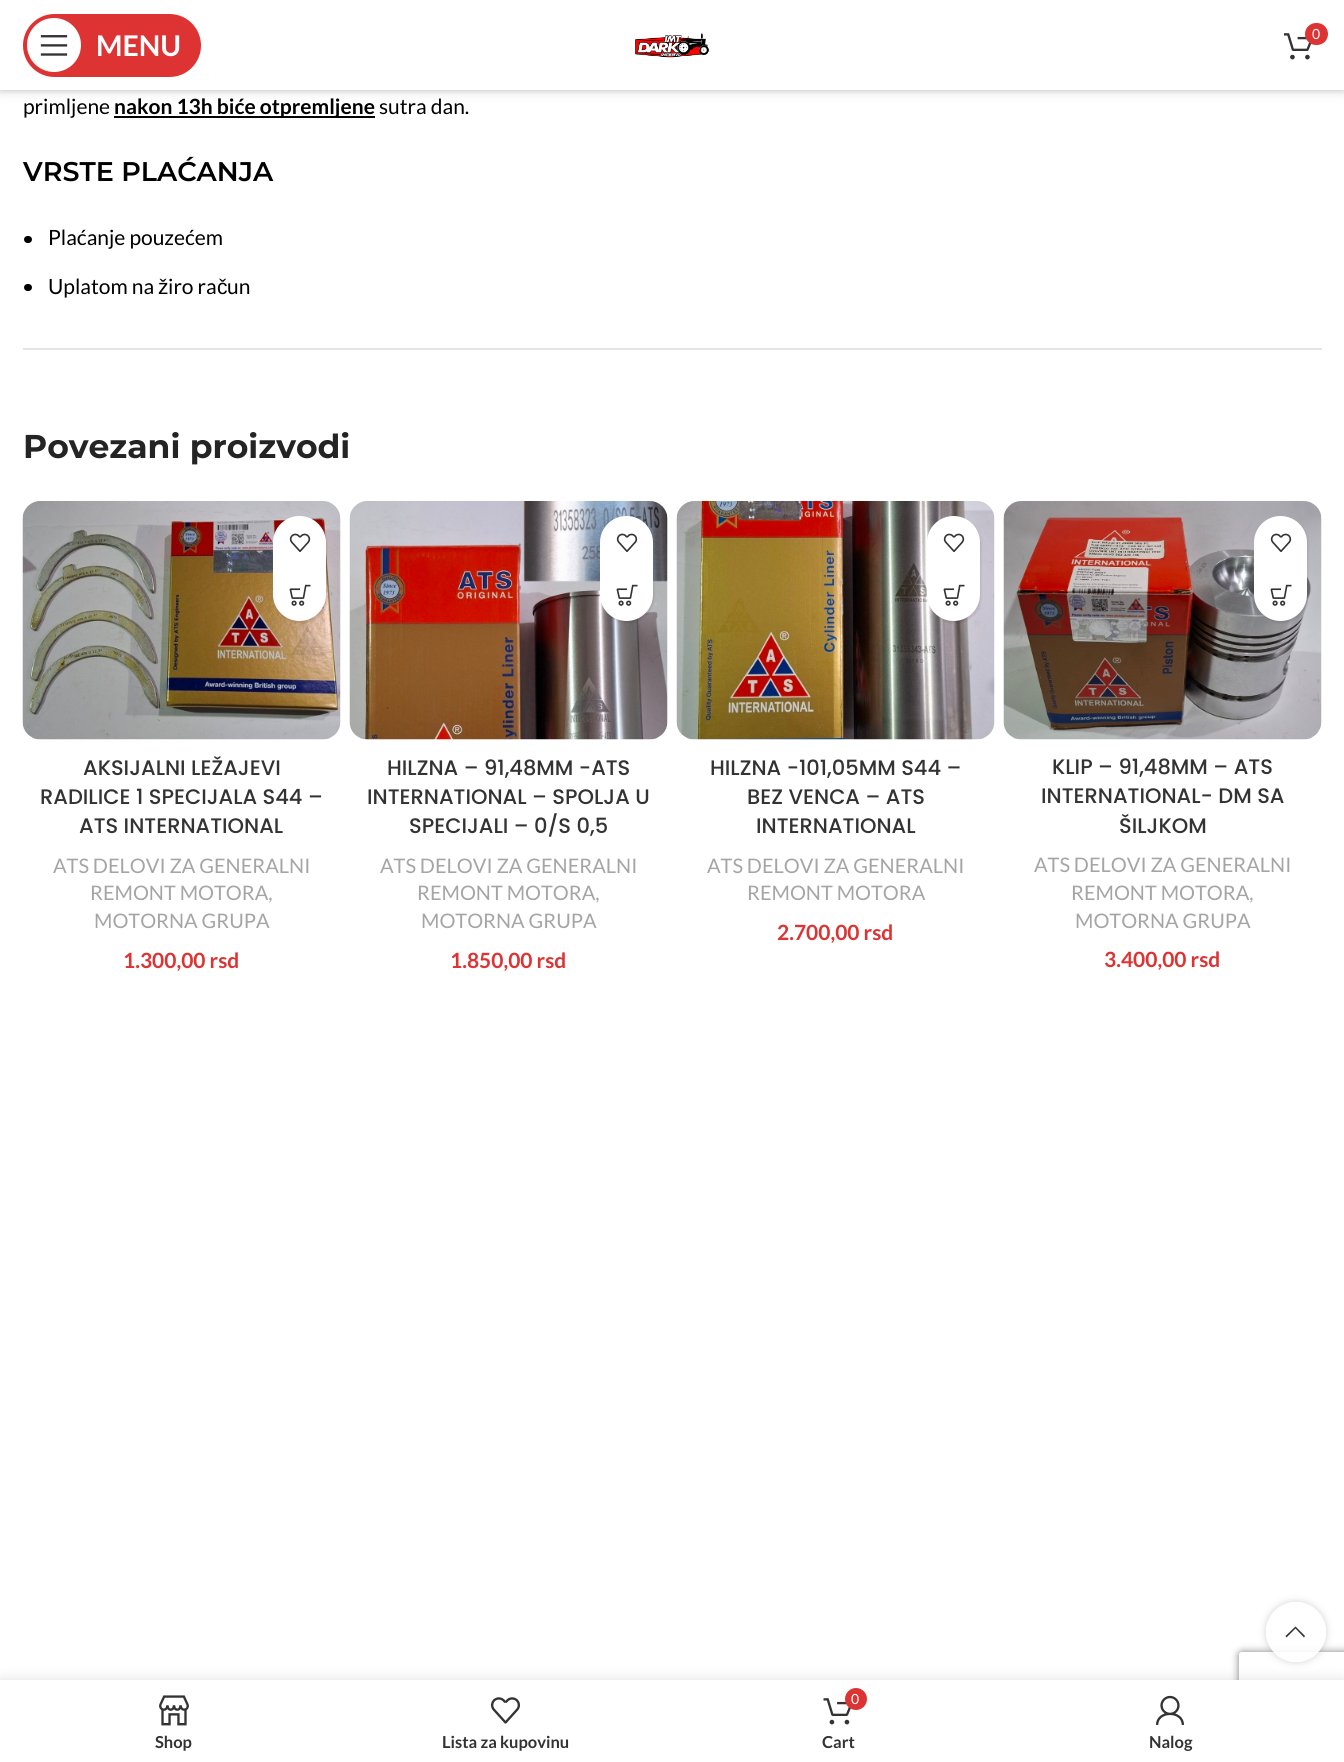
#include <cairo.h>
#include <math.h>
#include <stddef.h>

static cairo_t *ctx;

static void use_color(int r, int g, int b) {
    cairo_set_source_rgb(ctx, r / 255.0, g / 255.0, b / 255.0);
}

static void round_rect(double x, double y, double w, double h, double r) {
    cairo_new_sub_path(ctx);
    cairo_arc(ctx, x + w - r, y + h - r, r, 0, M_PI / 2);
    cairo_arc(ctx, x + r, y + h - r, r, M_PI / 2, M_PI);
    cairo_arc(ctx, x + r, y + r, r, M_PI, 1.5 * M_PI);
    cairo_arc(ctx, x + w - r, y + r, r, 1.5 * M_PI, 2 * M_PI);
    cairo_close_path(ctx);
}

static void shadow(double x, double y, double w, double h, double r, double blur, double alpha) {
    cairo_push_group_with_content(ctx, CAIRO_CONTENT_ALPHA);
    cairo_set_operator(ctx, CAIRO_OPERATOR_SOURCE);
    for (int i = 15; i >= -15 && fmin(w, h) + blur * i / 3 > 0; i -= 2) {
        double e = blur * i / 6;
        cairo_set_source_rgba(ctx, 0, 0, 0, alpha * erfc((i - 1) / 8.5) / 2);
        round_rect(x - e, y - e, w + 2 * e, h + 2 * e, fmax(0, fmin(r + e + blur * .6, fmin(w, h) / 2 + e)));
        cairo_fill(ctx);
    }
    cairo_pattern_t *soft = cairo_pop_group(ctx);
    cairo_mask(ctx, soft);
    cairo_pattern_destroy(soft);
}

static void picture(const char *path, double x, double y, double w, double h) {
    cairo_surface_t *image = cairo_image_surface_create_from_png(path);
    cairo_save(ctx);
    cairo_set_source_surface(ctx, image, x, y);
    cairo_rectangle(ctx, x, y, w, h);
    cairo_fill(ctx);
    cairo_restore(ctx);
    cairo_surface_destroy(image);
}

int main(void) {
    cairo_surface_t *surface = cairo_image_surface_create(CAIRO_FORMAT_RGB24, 1344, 1762);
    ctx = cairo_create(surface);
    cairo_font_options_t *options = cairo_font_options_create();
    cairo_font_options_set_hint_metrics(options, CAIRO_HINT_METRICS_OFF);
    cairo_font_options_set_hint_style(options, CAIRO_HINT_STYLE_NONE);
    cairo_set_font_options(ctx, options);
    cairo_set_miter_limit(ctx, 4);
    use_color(255, 255, 255);
    cairo_paint(ctx);
    use_color(0, 0, 0);
    shadow(0, 2, 1344, 90, 0, 2, 0.1);
    shadow(0, 2, 1344, 90, 0, 6, 0.1);
    use_color(255, 255, 255);
    cairo_rectangle(ctx, 0, 0, 1344, 90);
    cairo_fill(ctx);
    use_color(221, 51, 51);
    round_rect(23, 14, 178, 63, 31.5);
    cairo_fill(ctx);
    use_color(255, 255, 255);
    cairo_arc(ctx, 54, 45, 27, 0, 2 * M_PI);
    cairo_fill(ctx);
    picture("img1.png", 40, 35, 28, 21);
    cairo_select_font_face(ctx, "Lato", CAIRO_FONT_SLANT_NORMAL, CAIRO_FONT_WEIGHT_BOLD);
    cairo_set_font_size(ctx, 28.5);
    cairo_move_to(ctx, 96, 56);
    cairo_show_text(ctx, "MENU");
    picture("img2.png", 635, 32, 74, 26);
    picture("img3.png", 1284, 33, 28, 27);
    use_color(221, 51, 51);
    round_rect(1305, 23, 23, 22, 11);
    cairo_fill(ctx);
    cairo_select_font_face(ctx, "Lato", CAIRO_FONT_SLANT_NORMAL, CAIRO_FONT_WEIGHT_NORMAL);
    cairo_set_font_size(ctx, 14);
    use_color(255, 255, 255);
    cairo_move_to(ctx, 1312, 39);
    cairo_show_text(ctx, "0");
    use_color(228, 228, 228);
    cairo_rectangle(ctx, 23, 348, 1299, 2);
    cairo_fill(ctx);
    cairo_set_font_size(ctx, 21);
    use_color(0, 0, 0);
    cairo_move_to(ctx, 23, 114);
    cairo_show_text(ctx, "primljene");
    cairo_rectangle(ctx, 114, 116, 261, 2);
    cairo_fill(ctx);
    cairo_select_font_face(ctx, "Lato", CAIRO_FONT_SLANT_NORMAL, CAIRO_FONT_WEIGHT_BOLD);
    cairo_move_to(ctx, 114, 114);
    cairo_show_text(ctx, "nakon 13h biće otpremljene");
    cairo_select_font_face(ctx, "Lato", CAIRO_FONT_SLANT_NORMAL, CAIRO_FONT_WEIGHT_NORMAL);
    cairo_move_to(ctx, 379, 114);
    cairo_show_text(ctx, "sutra dan.");
    cairo_select_font_face(ctx, "Montserrat SemiBold", CAIRO_FONT_SLANT_NORMAL, CAIRO_FONT_WEIGHT_NORMAL);
    cairo_set_font_size(ctx, 27);
    cairo_move_to(ctx, 23, 181);
    cairo_show_text(ctx, "VRSTE PLAĆANJA");
    round_rect(24, 236, 8, 7, 3.5);
    cairo_fill(ctx);
    cairo_select_font_face(ctx, "Lato", CAIRO_FONT_SLANT_NORMAL, CAIRO_FONT_WEIGHT_NORMAL);
    cairo_set_font_size(ctx, 21);
    cairo_move_to(ctx, 48, 245);
    cairo_show_text(ctx, "Plaćanje pouzećem");
    round_rect(24, 284, 8, 7, 3.5);
    cairo_fill(ctx);
    cairo_move_to(ctx, 48, 294);
    cairo_show_text(ctx, "Uplatom na");
    cairo_select_font_face(ctx, "Liberation Sans", CAIRO_FONT_SLANT_NORMAL, CAIRO_FONT_WEIGHT_NORMAL);
    cairo_move_to(ctx, 158, 294);
    cairo_show_text(ctx, "ž");
    cairo_select_font_face(ctx, "Lato", CAIRO_FONT_SLANT_NORMAL, CAIRO_FONT_WEIGHT_NORMAL);
    cairo_move_to(ctx, 168, 294);
    cairo_show_text(ctx, "iro ra");
    cairo_select_font_face(ctx, "Liberation Sans", CAIRO_FONT_SLANT_NORMAL, CAIRO_FONT_WEIGHT_NORMAL);
    cairo_move_to(ctx, 217, 294);
    cairo_show_text(ctx, "č");
    cairo_select_font_face(ctx, "Lato", CAIRO_FONT_SLANT_NORMAL, CAIRO_FONT_WEIGHT_NORMAL);
    cairo_move_to(ctx, 227, 294);
    cairo_show_text(ctx, "un");
    cairo_select_font_face(ctx, "Montserrat", CAIRO_FONT_SLANT_NORMAL, CAIRO_FONT_WEIGHT_BOLD);
    cairo_set_font_size(ctx, 33);
    use_color(36, 36, 36);
    cairo_move_to(ctx, 23, 458);
    cairo_show_text(ctx, "Povezani proizvodi");
    picture("img4.png", 22, 501, 319, 239);
    use_color(0, 0, 0);
    shadow(275, 518, 52, 105, 26, 1, 0.1);
    use_color(255, 255, 255);
    round_rect(273, 516, 53, 105, 26.5);
    cairo_fill(ctx);
    picture("img5.png", 289, 533, 22, 19);
    picture("img6.png", 289, 584, 22, 22);
    cairo_select_font_face(ctx, "Poppins Medium", CAIRO_FONT_SLANT_NORMAL, CAIRO_FONT_WEIGHT_NORMAL);
    cairo_set_font_size(ctx, 21);
    use_color(51, 51, 51);
    cairo_move_to(ctx, 83, 775);
    cairo_show_text(ctx, "AKSIJALNI LEŽAJEVI");
    cairo_move_to(ctx, 40, 804);
    cairo_show_text(ctx, "RADILICE 1 SPECIJALA S44 –");
    cairo_move_to(ctx, 79, 833);
    cairo_show_text(ctx, "ATS INTERNATIONAL");
    cairo_select_font_face(ctx, "Lato", CAIRO_FONT_SLANT_NORMAL, CAIRO_FONT_WEIGHT_NORMAL);
    cairo_set_font_size(ctx, 20);
    use_color(165, 165, 165);
    cairo_move_to(ctx, 53, 873);
    cairo_show_text(ctx, "ATS DELOVI ZA GENERALNI");
    cairo_move_to(ctx, 90, 900);
    cairo_show_text(ctx, "REMONT MOTORA,");
    cairo_move_to(ctx, 94, 928);
    cairo_show_text(ctx, "MOTORNA GRUPA");
    cairo_select_font_face(ctx, "Lato", CAIRO_FONT_SLANT_NORMAL, CAIRO_FONT_WEIGHT_BOLD);
    cairo_set_font_size(ctx, 21);
    use_color(221, 51, 51);
    cairo_move_to(ctx, 123, 968);
    cairo_show_text(ctx, "1.300,00 rsd");
    picture("img7.png", 349, 501, 319, 239);
    use_color(0, 0, 0);
    shadow(602, 518, 52, 105, 26, 1, 0.1);
    use_color(255, 255, 255);
    round_rect(600, 516, 53, 105, 26.5);
    cairo_fill(ctx);
    picture("img5.png", 616, 533, 22, 19);
    picture("img6.png", 616, 584, 22, 22);
    cairo_select_font_face(ctx, "Poppins Medium", CAIRO_FONT_SLANT_NORMAL, CAIRO_FONT_WEIGHT_NORMAL);
    use_color(51, 51, 51);
    cairo_move_to(ctx, 387, 775);
    cairo_show_text(ctx, "HILZNA – 91,48MM -ATS");
    cairo_move_to(ctx, 367, 804);
    cairo_show_text(ctx, "INTERNATIONAL – SPOLJA U");
    cairo_move_to(ctx, 409, 833);
    cairo_show_text(ctx, "SPECIJALI – 0/S 0,5");
    cairo_select_font_face(ctx, "Lato", CAIRO_FONT_SLANT_NORMAL, CAIRO_FONT_WEIGHT_NORMAL);
    cairo_set_font_size(ctx, 20);
    use_color(165, 165, 165);
    cairo_move_to(ctx, 380, 873);
    cairo_show_text(ctx, "ATS DELOVI ZA GENERALNI");
    cairo_move_to(ctx, 417, 900);
    cairo_show_text(ctx, "REMONT MOTORA,");
    cairo_move_to(ctx, 421, 928);
    cairo_show_text(ctx, "MOTORNA GRUPA");
    cairo_select_font_face(ctx, "Lato", CAIRO_FONT_SLANT_NORMAL, CAIRO_FONT_WEIGHT_BOLD);
    cairo_set_font_size(ctx, 21);
    use_color(221, 51, 51);
    cairo_move_to(ctx, 450, 968);
    cairo_show_text(ctx, "1.850,00 rsd");
    picture("img8.png", 676, 501, 319, 239);
    use_color(0, 0, 0);
    shadow(929, 518, 52, 105, 26, 1, 0.1);
    use_color(255, 255, 255);
    round_rect(927, 516, 53, 105, 26.5);
    cairo_fill(ctx);
    picture("img5.png", 943, 533, 22, 19);
    picture("img6.png", 943, 584, 22, 22);
    cairo_select_font_face(ctx, "Poppins Medium", CAIRO_FONT_SLANT_NORMAL, CAIRO_FONT_WEIGHT_NORMAL);
    use_color(51, 51, 51);
    cairo_move_to(ctx, 710, 775);
    cairo_show_text(ctx, "HILZNA -101,05MM S44 –");
    cairo_move_to(ctx, 747, 804);
    cairo_show_text(ctx, "BEZ VENCA – ATS");
    cairo_move_to(ctx, 756, 833);
    cairo_show_text(ctx, "INTERNATIONAL");
    cairo_select_font_face(ctx, "Lato", CAIRO_FONT_SLANT_NORMAL, CAIRO_FONT_WEIGHT_NORMAL);
    cairo_set_font_size(ctx, 20);
    use_color(165, 165, 165);
    cairo_move_to(ctx, 707, 873);
    cairo_show_text(ctx, "ATS DELOVI ZA GENERALNI");
    cairo_move_to(ctx, 747, 900);
    cairo_show_text(ctx, "REMONT MOTORA");
    cairo_select_font_face(ctx, "Lato", CAIRO_FONT_SLANT_NORMAL, CAIRO_FONT_WEIGHT_BOLD);
    cairo_set_font_size(ctx, 21);
    use_color(221, 51, 51);
    cairo_move_to(ctx, 777, 940);
    cairo_show_text(ctx, "2.700,00 rsd");
    picture("img9.png", 1003, 501, 319, 239);
    use_color(0, 0, 0);
    shadow(1256, 518, 52, 105, 26, 1, 0.1);
    use_color(255, 255, 255);
    round_rect(1254, 516, 53, 105, 26.5);
    cairo_fill(ctx);
    picture("img5.png", 1270, 533, 22, 19);
    picture("img6.png", 1270, 584, 22, 22);
    cairo_select_font_face(ctx, "Poppins Medium", CAIRO_FONT_SLANT_NORMAL, CAIRO_FONT_WEIGHT_NORMAL);
    use_color(51, 51, 51);
    cairo_move_to(ctx, 1052, 774);
    cairo_show_text(ctx, "KLIP – 91,48MM – ATS");
    cairo_move_to(ctx, 1041, 803);
    cairo_show_text(ctx, "INTERNATIONAL- DM SA");
    cairo_move_to(ctx, 1119, 833);
    cairo_show_text(ctx, "ŠILJKOM");
    cairo_select_font_face(ctx, "Lato", CAIRO_FONT_SLANT_NORMAL, CAIRO_FONT_WEIGHT_NORMAL);
    cairo_set_font_size(ctx, 20);
    use_color(165, 165, 165);
    cairo_move_to(ctx, 1034, 872);
    cairo_show_text(ctx, "ATS DELOVI ZA GENERALNI");
    cairo_move_to(ctx, 1071, 900);
    cairo_show_text(ctx, "REMONT MOTORA,");
    cairo_move_to(ctx, 1075, 928);
    cairo_show_text(ctx, "MOTORNA GRUPA");
    cairo_select_font_face(ctx, "Lato", CAIRO_FONT_SLANT_NORMAL, CAIRO_FONT_WEIGHT_BOLD);
    cairo_set_font_size(ctx, 21);
    use_color(221, 51, 51);
    cairo_move_to(ctx, 1104, 967);
    cairo_show_text(ctx, "3.400,00 rsd");
    cairo_save(ctx);
    cairo_set_fill_rule(ctx, CAIRO_FILL_RULE_EVEN_ODD);
    cairo_new_path(ctx);
    cairo_move_to(ctx, 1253, 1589);
    cairo_line_to(ctx, 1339, 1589);
    cairo_line_to(ctx, 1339, 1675);
    cairo_line_to(ctx, 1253, 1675);
    cairo_close_path(ctx);
    cairo_move_to(ctx, 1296, 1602);
    cairo_curve_to(ctx, 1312.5, 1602, 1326, 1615.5, 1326, 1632);
    cairo_curve_to(ctx, 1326, 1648.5, 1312.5, 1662, 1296, 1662);
    cairo_curve_to(ctx, 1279.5, 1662, 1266, 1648.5, 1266, 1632);
    cairo_curve_to(ctx, 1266, 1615.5, 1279.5, 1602, 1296, 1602);
    cairo_close_path(ctx);
    cairo_clip(ctx);
    use_color(0, 0, 0);
    shadow(1266, 1602, 60, 60, 30, 4, 0.17);
    cairo_restore(ctx);
    cairo_save(ctx);
    cairo_set_fill_rule(ctx, CAIRO_FILL_RULE_EVEN_ODD);
    cairo_new_path(ctx);
    cairo_move_to(ctx, 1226, 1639);
    cairo_line_to(ctx, 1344, 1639);
    cairo_line_to(ctx, 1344, 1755);
    cairo_line_to(ctx, 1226, 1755);
    cairo_close_path(ctx);
    cairo_move_to(ctx, 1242, 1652);
    cairo_line_to(ctx, 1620, 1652);
    cairo_curve_to(ctx, 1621.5, 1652, 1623, 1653.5, 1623, 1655);
    cairo_line_to(ctx, 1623, 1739);
    cairo_curve_to(ctx, 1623, 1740.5, 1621.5, 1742, 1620, 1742);
    cairo_line_to(ctx, 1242, 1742);
    cairo_curve_to(ctx, 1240.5, 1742, 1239, 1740.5, 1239, 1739);
    cairo_line_to(ctx, 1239, 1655);
    cairo_curve_to(ctx, 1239, 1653.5, 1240.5, 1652, 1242, 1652);
    cairo_close_path(ctx);
    cairo_clip(ctx);
    use_color(128, 128, 128);
    shadow(1239, 1652, 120, 90, 3, 4, 1);
    cairo_restore(ctx);
    cairo_set_source_rgba(ctx, 1, 1, 1, 0.9);
    cairo_arc(ctx, 1296, 1632, 30, 0, 2 * M_PI);
    cairo_fill(ctx);
    use_color(51, 51, 51);
    cairo_new_path(ctx);
    cairo_move_to(ctx, 1304, 1637.5);
    cairo_line_to(ctx, 1305, 1636);
    cairo_line_to(ctx, 1295.5, 1626.5);
    cairo_line_to(ctx, 1285.5, 1636);
    cairo_line_to(ctx, 1286.5, 1637.5);
    cairo_line_to(ctx, 1295.5, 1628.5);
    cairo_close_path(ctx);
    cairo_fill(ctx);
    use_color(0, 0, 0);
    shadow(0, 1680, 1344, 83, 0, 7, 0.12);
    use_color(255, 255, 255);
    cairo_rectangle(ctx, 0, 1680, 1344, 82);
    cairo_fill(ctx);
    picture("img10.png", 159, 1695, 30, 31);
    cairo_set_font_size(ctx, 16.5);
    use_color(51, 51, 51);
    cairo_move_to(ctx, 155, 1748);
    cairo_show_text(ctx, "Shop");
    picture("img11.png", 491, 1697, 29, 27);
    cairo_move_to(ctx, 442, 1748);
    cairo_show_text(ctx, "Lista za kupovinu");
    picture("img12.png", 823, 1698, 28, 27);
    use_color(221, 51, 51);
    cairo_arc(ctx, 856, 1699, 11, 0, 2 * M_PI);
    cairo_fill(ctx);
    cairo_select_font_face(ctx, "Lato", CAIRO_FONT_SLANT_NORMAL, CAIRO_FONT_WEIGHT_NORMAL);
    cairo_set_font_size(ctx, 14);
    use_color(255, 255, 255);
    cairo_move_to(ctx, 851, 1704);
    cairo_show_text(ctx, "0");
    cairo_select_font_face(ctx, "Lato", CAIRO_FONT_SLANT_NORMAL, CAIRO_FONT_WEIGHT_BOLD);
    cairo_set_font_size(ctx, 16.5);
    use_color(51, 51, 51);
    cairo_move_to(ctx, 822, 1748);
    cairo_show_text(ctx, "Cart");
    picture("img13.png", 1156, 1695, 28, 30);
    cairo_move_to(ctx, 1149, 1748);
    cairo_show_text(ctx, "Nalog");
    cairo_surface_write_to_png(surface, "result.png");
    cairo_font_options_destroy(options);
    cairo_destroy(ctx);
    cairo_surface_destroy(surface);
    return 0;
}
